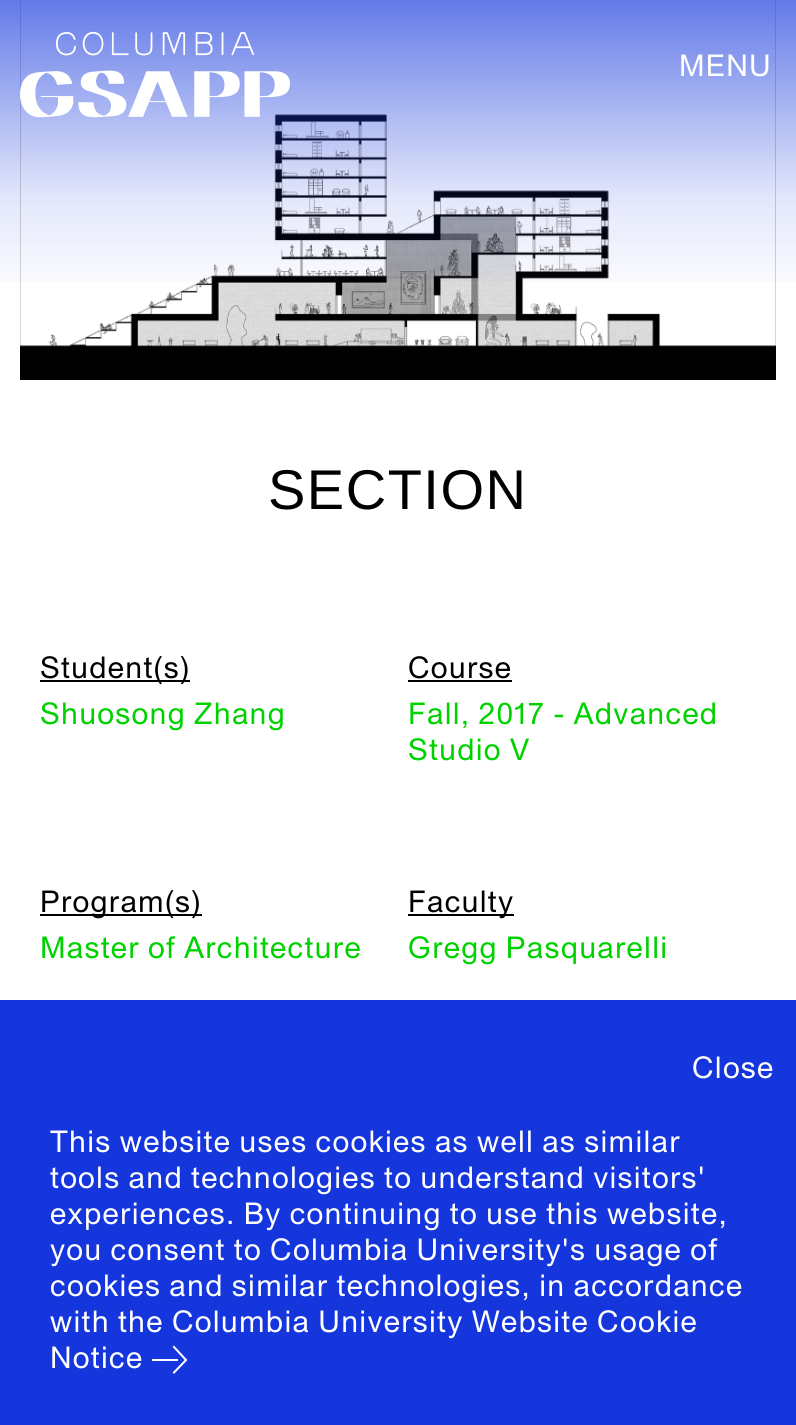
#include <cairo.h>
#include <math.h>
#include <stddef.h>

static cairo_t *ctx;

static void use_color(int r, int g, int b) {
    cairo_set_source_rgb(ctx, r / 255.0, g / 255.0, b / 255.0);
}

static void spaced_text(double x, double y, const char *s, double letter, double word) {
    cairo_move_to(ctx, x, y);
    while (*s) {
        char ch[5] = {0};
        int n = 0;
        do ch[n++] = *s++; while ((*s & 0xC0) == 0x80);
        cairo_show_text(ctx, ch);
        cairo_rel_move_to(ctx, letter + word * (*ch == ' '), 0);
    }
}

static void picture(const char *path, double x, double y, double w, double h) {
    cairo_surface_t *image = cairo_image_surface_create_from_png(path);
    cairo_save(ctx);
    cairo_set_source_surface(ctx, image, x, y);
    cairo_rectangle(ctx, x, y, w, h);
    cairo_fill(ctx);
    cairo_restore(ctx);
    cairo_surface_destroy(image);
}

int main(void) {
    cairo_surface_t *surface = cairo_image_surface_create(CAIRO_FORMAT_RGB24, 796, 1425);
    ctx = cairo_create(surface);
    cairo_font_options_t *options = cairo_font_options_create();
    cairo_font_options_set_hint_metrics(options, CAIRO_HINT_METRICS_OFF);
    cairo_font_options_set_hint_style(options, CAIRO_HINT_STYLE_NONE);
    cairo_set_font_options(ctx, options);
    cairo_set_miter_limit(ctx, 4);
    cairo_pattern_t *gradient;
    use_color(255, 255, 255);
    cairo_paint(ctx);
    picture("img2.png", 20, 0, 756, 380);
    gradient = cairo_pattern_create_linear(398, 0, 398, 300);
    cairo_pattern_add_color_stop_rgba(gradient, 0, 0.078, 0.212, 0.863, 0.66);
    cairo_pattern_add_color_stop_rgba(gradient, 0.66, 0.078, 0.212, 0.863, 0.12);
    cairo_pattern_add_color_stop_rgba(gradient, 1, 0.078, 0.212, 0.863, 0);
    cairo_set_source(ctx, gradient);
    cairo_pattern_destroy(gradient);
    cairo_rectangle(ctx, 0, 0, 796, 282);
    cairo_fill(ctx);
    picture("img1.png", 20, 31, 270, 87);
    cairo_select_font_face(ctx, "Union", CAIRO_FONT_SLANT_NORMAL, CAIRO_FONT_WEIGHT_NORMAL);
    cairo_set_font_size(ctx, 30);
    use_color(255, 255, 255);
    spaced_text(679, 76, "MENU", 1.25, 0);
    cairo_select_font_face(ctx, "Liberation Sans", CAIRO_FONT_SLANT_NORMAL, CAIRO_FONT_WEIGHT_NORMAL);
    cairo_set_font_size(ctx, 56);
    use_color(0, 0, 0);
    spaced_text(268, 509, "SECTION", 1.5, 0);
    cairo_rectangle(ctx, 40, 680, 150, 2);
    cairo_fill(ctx);
    cairo_select_font_face(ctx, "Union", CAIRO_FONT_SLANT_NORMAL, CAIRO_FONT_WEIGHT_NORMAL);
    cairo_set_font_size(ctx, 30);
    spaced_text(40, 678, "Student(s)", 1.25, 0);
    use_color(0, 210, 0);
    spaced_text(40, 724, "Shuosong Zhang", 1.25, 0);
    use_color(0, 0, 0);
    spaced_text(408, 678, "Course", 1.25, 0);
    cairo_rectangle(ctx, 408, 680, 104, 2);
    cairo_fill(ctx);
    use_color(0, 210, 0);
    spaced_text(408, 724, "Fall, 2017 - Advanced", 1.25, 0);
    spaced_text(408, 760, "Studio V", 1.25, 0);
    use_color(0, 0, 0);
    cairo_rectangle(ctx, 40, 914, 162, 2);
    cairo_fill(ctx);
    spaced_text(40, 912, "Program(s)", 1.25, 0);
    use_color(0, 210, 0);
    spaced_text(40, 958, "Master of Architecture", 1.25, 0);
    use_color(0, 0, 0);
    cairo_rectangle(ctx, 408, 914, 106, 2);
    cairo_fill(ctx);
    spaced_text(408, 912, "Faculty", 1.25, 0);
    use_color(0, 210, 0);
    spaced_text(408, 958, "Gregg Pasquarelli", 1.25, 0);
    use_color(20, 54, 220);
    cairo_rectangle(ctx, 0, 1000, 796, 425);
    cairo_fill(ctx);
    use_color(255, 255, 255);
    spaced_text(692, 1078, "Close", 1.25, 0);
    spaced_text(50, 1152, "This website uses cookies as well as similar", 1.25, 0);
    spaced_text(50, 1188, "tools and technologies to understand visitors'", 1.25, 0);
    spaced_text(50, 1224, "experiences. By continuing to use this website,", 1.25, 0);
    spaced_text(50, 1260, "you consent to Columbia University's usage of", 1.25, 0);
    spaced_text(50, 1296, "cookies and similar technologies, in accordance", 1.25, 0);
    spaced_text(50, 1332, "with the Columbia University Website Cookie", 1.25, 0);
    spaced_text(50, 1368, "Notice", 1.25, 0);
    cairo_rectangle(ctx, 152, 1359, 26, 2);
    cairo_fill(ctx);
    cairo_new_path(ctx);
    cairo_move_to(ctx, 174, 1347);
    cairo_line_to(ctx, 186, 1360);
    cairo_line_to(ctx, 174, 1372.5);
    cairo_set_line_cap(ctx, CAIRO_LINE_CAP_SQUARE);
    cairo_stroke(ctx);
    cairo_surface_write_to_png(surface, "result.png");
    cairo_font_options_destroy(options);
    cairo_destroy(ctx);
    cairo_surface_destroy(surface);
    return 0;
}
